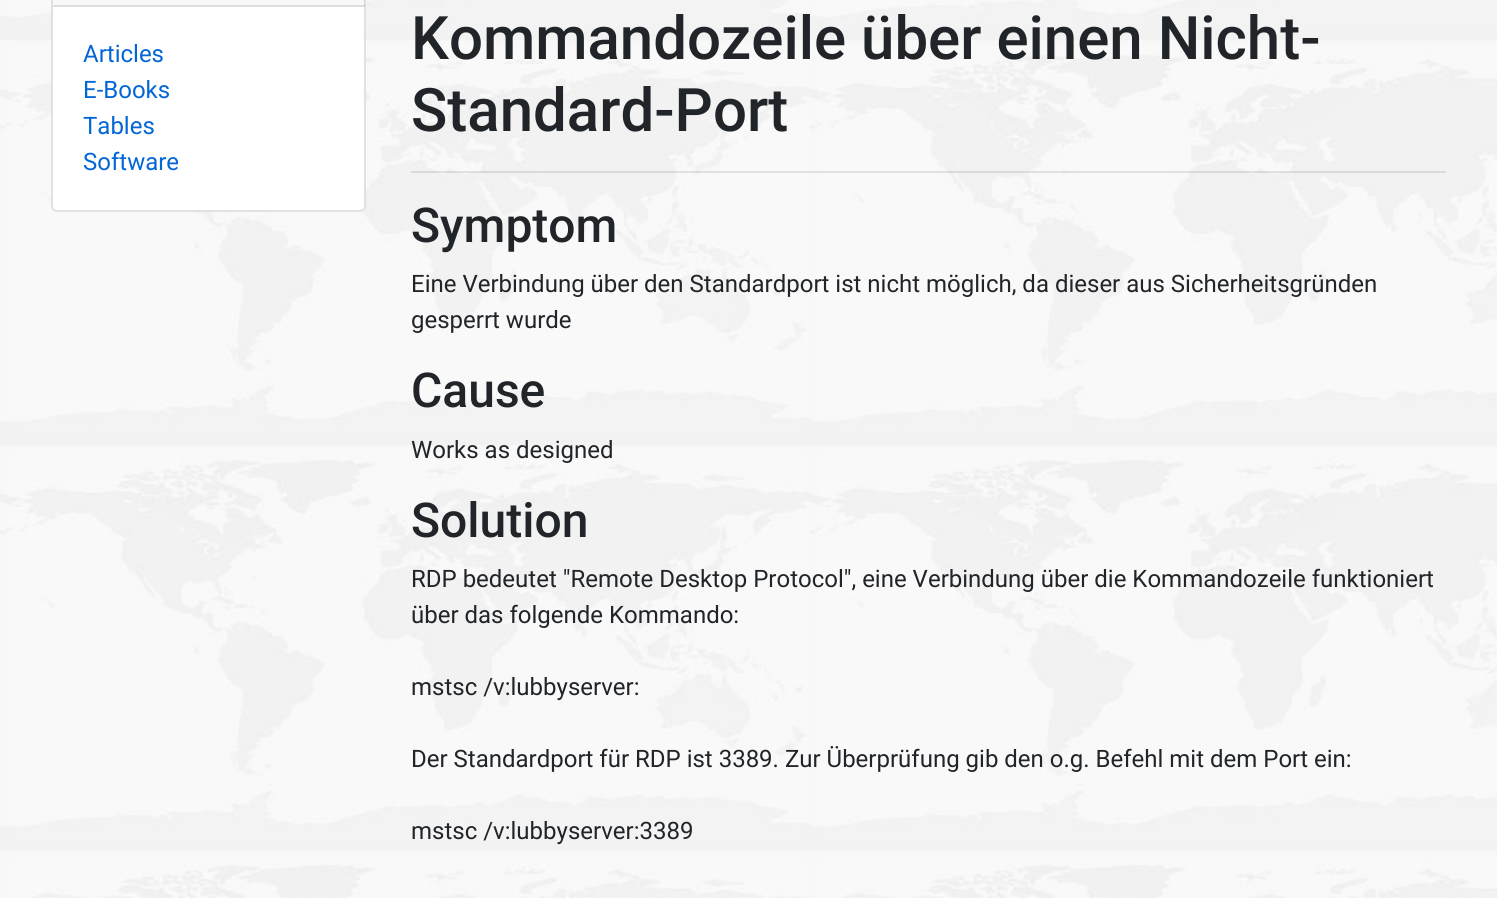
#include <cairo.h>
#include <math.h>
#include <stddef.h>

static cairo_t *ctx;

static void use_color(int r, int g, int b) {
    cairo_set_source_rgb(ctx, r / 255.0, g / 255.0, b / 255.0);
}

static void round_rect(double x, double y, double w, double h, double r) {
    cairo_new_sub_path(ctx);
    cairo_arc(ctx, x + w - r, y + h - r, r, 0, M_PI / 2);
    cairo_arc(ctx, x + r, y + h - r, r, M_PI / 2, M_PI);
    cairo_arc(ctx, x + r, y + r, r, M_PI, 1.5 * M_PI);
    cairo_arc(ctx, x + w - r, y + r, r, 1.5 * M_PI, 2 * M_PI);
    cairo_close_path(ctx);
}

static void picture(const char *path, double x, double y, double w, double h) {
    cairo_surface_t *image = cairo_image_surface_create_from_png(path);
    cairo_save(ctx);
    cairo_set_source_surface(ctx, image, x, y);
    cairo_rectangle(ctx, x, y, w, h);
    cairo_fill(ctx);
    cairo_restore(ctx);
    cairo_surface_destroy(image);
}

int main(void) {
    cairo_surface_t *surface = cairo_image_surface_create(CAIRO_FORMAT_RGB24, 1497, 898);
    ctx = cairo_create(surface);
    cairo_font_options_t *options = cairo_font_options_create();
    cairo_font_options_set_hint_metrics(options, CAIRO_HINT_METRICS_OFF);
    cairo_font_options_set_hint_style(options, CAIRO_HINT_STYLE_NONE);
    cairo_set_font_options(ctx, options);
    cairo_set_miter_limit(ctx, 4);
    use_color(255, 255, 255);
    cairo_paint(ctx);
    picture("img1.png", 0, 0, 1497, 898);
    use_color(255, 255, 255);
    round_rect(51, -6, 315, 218, 6);
    cairo_fill(ctx);
    round_rect(52, -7, 313, 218, 5);
    cairo_set_source_rgba(ctx, 0, 0, 0, 0.12);
    cairo_stroke(ctx);
    cairo_set_source_rgba(ctx, 0, 0, 0, 0.03);
    cairo_rectangle(ctx, 53, 0, 312, 6);
    cairo_fill(ctx);
    cairo_set_source_rgba(ctx, 0, 0, 0, 0.12);
    cairo_rectangle(ctx, 53, 5, 312, 2);
    cairo_fill(ctx);
    cairo_select_font_face(ctx, "Roboto", CAIRO_FONT_SLANT_NORMAL, CAIRO_FONT_WEIGHT_NORMAL);
    cairo_set_font_size(ctx, 24);
    use_color(3, 102, 214);
    cairo_move_to(ctx, 83, 62);
    cairo_show_text(ctx, "Articles");
    cairo_move_to(ctx, 83, 98);
    cairo_show_text(ctx, "E-Books");
    cairo_move_to(ctx, 83, 134);
    cairo_show_text(ctx, "Tables");
    cairo_move_to(ctx, 83, 170);
    cairo_show_text(ctx, "Software");
    cairo_select_font_face(ctx, "Roboto Medium", CAIRO_FONT_SLANT_NORMAL, CAIRO_FONT_WEIGHT_NORMAL);
    cairo_set_font_size(ctx, 60);
    use_color(33, 37, 41);
    cairo_move_to(ctx, 411, 59);
    cairo_show_text(ctx, "Kommandozeile über einen Nicht-");
    cairo_move_to(ctx, 411, 131);
    cairo_show_text(ctx, "Standard-Port");
    cairo_set_source_rgba(ctx, 0, 0, 0, 0.1);
    cairo_rectangle(ctx, 411, 171, 1035, 2);
    cairo_fill(ctx);
    cairo_set_font_size(ctx, 48);
    use_color(33, 37, 41);
    cairo_move_to(ctx, 411, 242);
    cairo_show_text(ctx, "Symptom");
    cairo_select_font_face(ctx, "Roboto", CAIRO_FONT_SLANT_NORMAL, CAIRO_FONT_WEIGHT_NORMAL);
    cairo_set_font_size(ctx, 24);
    cairo_move_to(ctx, 411, 292);
    cairo_show_text(ctx, "Eine Verbindung über den Standardport ist nicht möglich, da dieser aus Sicherheitsgründen");
    cairo_move_to(ctx, 411, 328);
    cairo_show_text(ctx, "gesperrt wurde");
    cairo_select_font_face(ctx, "Roboto Medium", CAIRO_FONT_SLANT_NORMAL, CAIRO_FONT_WEIGHT_NORMAL);
    cairo_set_font_size(ctx, 48);
    cairo_move_to(ctx, 411, 407);
    cairo_show_text(ctx, "Cause");
    cairo_select_font_face(ctx, "Roboto", CAIRO_FONT_SLANT_NORMAL, CAIRO_FONT_WEIGHT_NORMAL);
    cairo_set_font_size(ctx, 24);
    cairo_move_to(ctx, 411, 458);
    cairo_show_text(ctx, "Works as designed");
    cairo_select_font_face(ctx, "Roboto Medium", CAIRO_FONT_SLANT_NORMAL, CAIRO_FONT_WEIGHT_NORMAL);
    cairo_set_font_size(ctx, 48);
    cairo_move_to(ctx, 411, 537);
    cairo_show_text(ctx, "Solution");
    cairo_select_font_face(ctx, "Roboto", CAIRO_FONT_SLANT_NORMAL, CAIRO_FONT_WEIGHT_NORMAL);
    cairo_set_font_size(ctx, 24);
    cairo_move_to(ctx, 411, 587);
    cairo_show_text(ctx, "RDP bedeutet \"Remote Desktop Protocol\", eine Verbindung über die Kommandozeile funktioniert");
    cairo_move_to(ctx, 411, 623);
    cairo_show_text(ctx, "über das folgende Kommando:");
    cairo_move_to(ctx, 411, 695);
    cairo_show_text(ctx, "mstsc /v:lubbyserver:");
    cairo_move_to(ctx, 411, 767);
    cairo_show_text(ctx, "Der Standardport für RDP ist 3389. Zur Überprüfung gib den o.g. Befehl mit dem Port ein:");
    cairo_move_to(ctx, 411, 839);
    cairo_show_text(ctx, "mstsc /v:lubbyserver:3389");
    cairo_surface_write_to_png(surface, "result.png");
    cairo_font_options_destroy(options);
    cairo_destroy(ctx);
    cairo_surface_destroy(surface);
    return 0;
}
